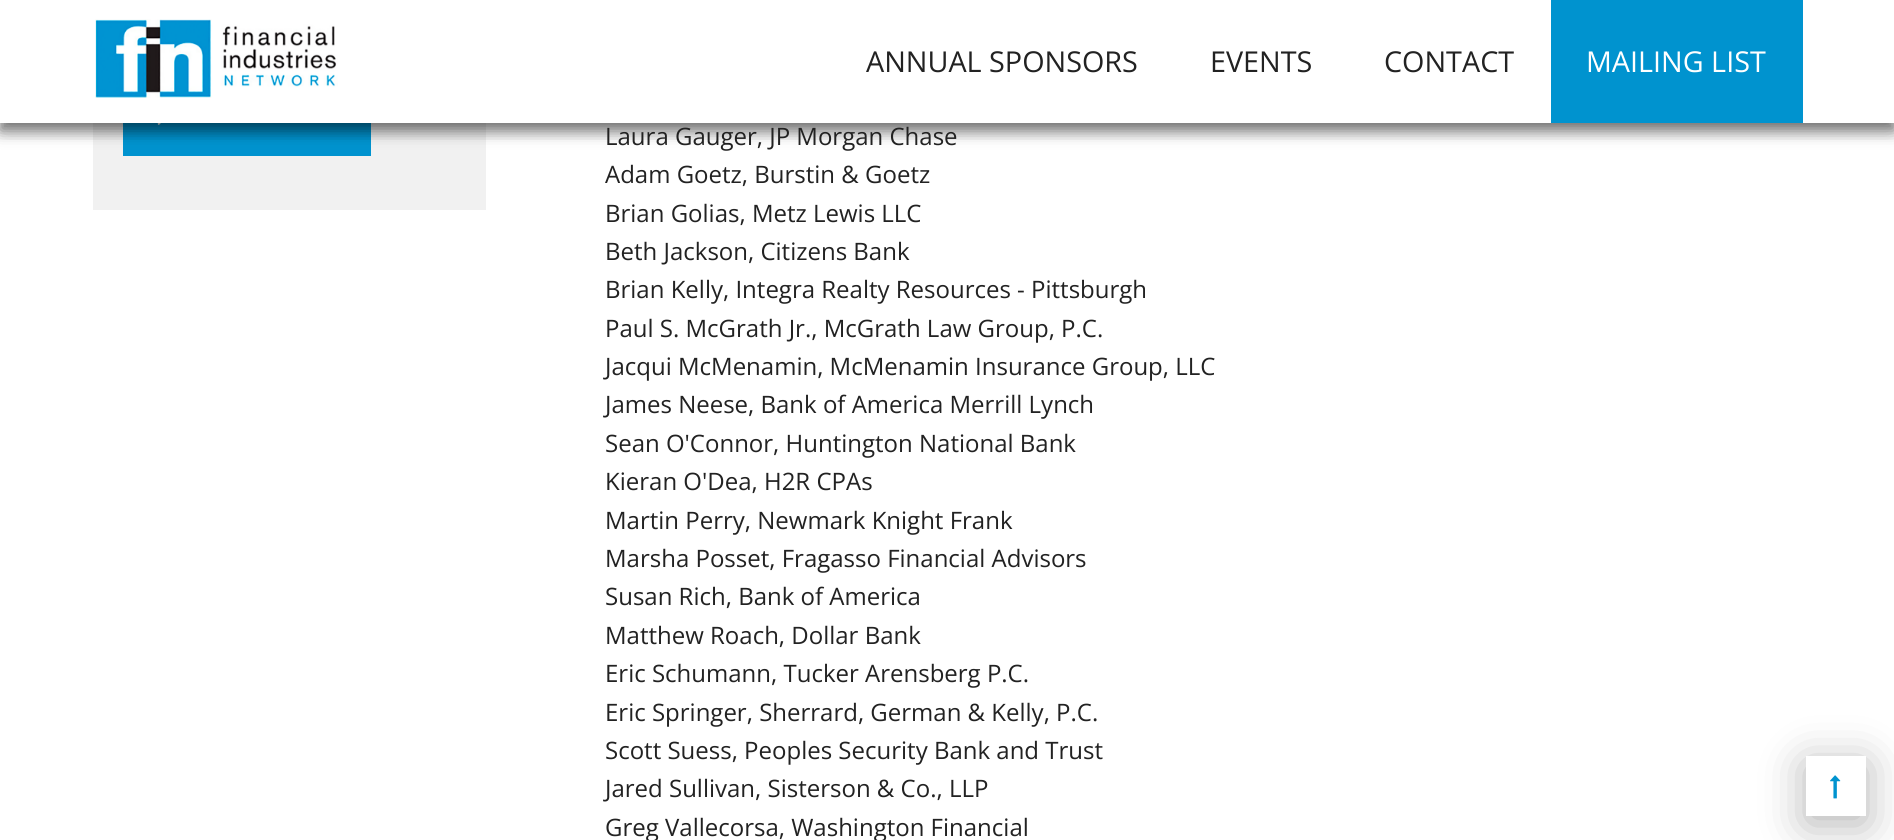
#include <cairo.h>
#include <math.h>
#include <stddef.h>

static cairo_t *ctx;

static void use_color(int r, int g, int b) {
    cairo_set_source_rgb(ctx, r / 255.0, g / 255.0, b / 255.0);
}

static void round_rect(double x, double y, double w, double h, double r) {
    cairo_new_sub_path(ctx);
    cairo_arc(ctx, x + w - r, y + h - r, r, 0, M_PI / 2);
    cairo_arc(ctx, x + r, y + h - r, r, M_PI / 2, M_PI);
    cairo_arc(ctx, x + r, y + r, r, M_PI, 1.5 * M_PI);
    cairo_arc(ctx, x + w - r, y + r, r, 1.5 * M_PI, 2 * M_PI);
    cairo_close_path(ctx);
}

static void shadow(double x, double y, double w, double h, double r, double blur, double alpha) {
    cairo_push_group_with_content(ctx, CAIRO_CONTENT_ALPHA);
    cairo_set_operator(ctx, CAIRO_OPERATOR_SOURCE);
    for (int i = 15; i >= -15 && fmin(w, h) + blur * i / 3 > 0; i -= 2) {
        double e = blur * i / 6;
        cairo_set_source_rgba(ctx, 0, 0, 0, alpha * erfc((i - 1) / 8.5) / 2);
        round_rect(x - e, y - e, w + 2 * e, h + 2 * e, fmax(0, fmin(r + e + blur * .6, fmin(w, h) / 2 + e)));
        cairo_fill(ctx);
    }
    cairo_pattern_t *soft = cairo_pop_group(ctx);
    cairo_mask(ctx, soft);
    cairo_pattern_destroy(soft);
}

static void picture(const char *path, double x, double y, double w, double h) {
    cairo_surface_t *image = cairo_image_surface_create_from_png(path);
    cairo_save(ctx);
    cairo_set_source_surface(ctx, image, x, y);
    cairo_rectangle(ctx, x, y, w, h);
    cairo_fill(ctx);
    cairo_restore(ctx);
    cairo_surface_destroy(image);
}

int main(void) {
    cairo_surface_t *surface = cairo_image_surface_create(CAIRO_FORMAT_RGB24, 1894, 840);
    ctx = cairo_create(surface);
    cairo_font_options_t *options = cairo_font_options_create();
    cairo_font_options_set_hint_metrics(options, CAIRO_HINT_METRICS_OFF);
    cairo_font_options_set_hint_style(options, CAIRO_HINT_STYLE_NONE);
    cairo_set_font_options(ctx, options);
    cairo_set_miter_limit(ctx, 4);
    use_color(255, 255, 255);
    cairo_paint(ctx);
    use_color(241, 241, 241);
    cairo_rectangle(ctx, 93, 123, 393, 87);
    cairo_fill(ctx);
    use_color(0, 147, 207);
    cairo_rectangle(ctx, 123, 123, 248, 33);
    cairo_fill(ctx);
    picture("img2.png", 157, 123, 4, 2);
    use_color(0, 0, 0);
    shadow(0, -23, 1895, 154, 0, 7.5, 0.5);
    use_color(255, 255, 255);
    cairo_rectangle(ctx, 0, 0, 1894, 123);
    cairo_fill(ctx);
    cairo_save(ctx);
    cairo_rectangle(ctx, 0, 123, 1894, 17);
    cairo_clip(ctx);
    use_color(0, 0, 0);
    shadow(6, 17, 1883, 111, 0, 10.5, 0.17);
    cairo_restore(ctx);
    picture("img1.png", 95, 19, 243, 79);
    cairo_select_font_face(ctx, "Open Sans", CAIRO_FONT_SLANT_NORMAL, CAIRO_FONT_WEIGHT_NORMAL);
    cairo_set_font_size(ctx, 28.75);
    use_color(34, 34, 34);
    cairo_move_to(ctx, 866, 72);
    cairo_show_text(ctx, "ANNUAL SPONSORS");
    cairo_move_to(ctx, 1210, 72);
    cairo_show_text(ctx, "EVENTS");
    cairo_move_to(ctx, 1384, 72);
    cairo_show_text(ctx, "CONTACT");
    use_color(0, 147, 207);
    cairo_rectangle(ctx, 1551, 0, 252, 123);
    cairo_fill(ctx);
    use_color(255, 255, 255);
    cairo_move_to(ctx, 1586, 72);
    cairo_show_text(ctx, "MAILING LIST");
    cairo_set_font_size(ctx, 24);
    use_color(34, 34, 34);
    cairo_move_to(ctx, 605, 145);
    cairo_show_text(ctx, "Laura Gauger, JP Morgan Chase");
    cairo_move_to(ctx, 605, 183);
    cairo_show_text(ctx, "Adam Goetz, Burstin & Goetz");
    cairo_move_to(ctx, 605, 222);
    cairo_show_text(ctx, "Brian Golias, Metz Lewis LLC");
    cairo_move_to(ctx, 605, 260);
    cairo_show_text(ctx, "Beth Jackson, Citizens Bank");
    cairo_move_to(ctx, 605, 298);
    cairo_show_text(ctx, "Brian Kelly, Integra Realty Resources - Pittsburgh");
    cairo_move_to(ctx, 605, 337);
    cairo_show_text(ctx, "Paul S. McGrath Jr., McGrath Law Group, P.C.");
    cairo_move_to(ctx, 605, 375);
    cairo_show_text(ctx, "Jacqui McMenamin, McMenamin Insurance Group, LLC");
    cairo_move_to(ctx, 605, 413);
    cairo_show_text(ctx, "James Neese, Bank of America Merrill Lynch");
    cairo_move_to(ctx, 605, 452);
    cairo_show_text(ctx, "Sean O'Connor, Huntington National Bank");
    cairo_move_to(ctx, 605, 490);
    cairo_show_text(ctx, "Kieran O'Dea, H2R CPAs");
    cairo_move_to(ctx, 605, 529);
    cairo_show_text(ctx, "Martin Perry, Newmark Knight Frank");
    cairo_move_to(ctx, 605, 567);
    cairo_show_text(ctx, "Marsha Posset, Fragasso Financial Advisors");
    cairo_move_to(ctx, 605, 605);
    cairo_show_text(ctx, "Susan Rich, Bank of America");
    cairo_move_to(ctx, 605, 644);
    cairo_show_text(ctx, "Matthew Roach, Dollar Bank");
    cairo_move_to(ctx, 605, 682);
    cairo_show_text(ctx, "Eric Schumann, Tucker Arensberg P.C.");
    cairo_move_to(ctx, 605, 721);
    cairo_show_text(ctx, "Eric Springer, Sherrard, German & Kelly, P.C.");
    cairo_move_to(ctx, 605, 759);
    cairo_show_text(ctx, "Scott Suess, Peoples Security Bank and Trust");
    cairo_move_to(ctx, 605, 797);
    cairo_show_text(ctx, "Jared Sullivan, Sisterson & Co., LLP");
    cairo_move_to(ctx, 605, 836);
    cairo_show_text(ctx, "Greg Vallecorsa, Washington Financial");
    cairo_save(ctx);
    cairo_set_fill_rule(ctx, CAIRO_FILL_RULE_EVEN_ODD);
    cairo_new_path(ctx);
    cairo_move_to(ctx, 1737, 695);
    cairo_line_to(ctx, 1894, 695);
    cairo_line_to(ctx, 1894, 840);
    cairo_line_to(ctx, 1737, 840);
    cairo_close_path(ctx);
    cairo_move_to(ctx, 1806, 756);
    cairo_line_to(ctx, 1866, 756);
    cairo_line_to(ctx, 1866, 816);
    cairo_line_to(ctx, 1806, 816);
    cairo_close_path(ctx);
    cairo_clip(ctx);
    use_color(0, 0, 0);
    shadow(1806, 764, 60, 60, 0, 22.5, 0.3);
    cairo_restore(ctx);
    picture("img3.png", 1830, 775, 11, 24);
    cairo_surface_write_to_png(surface, "result.png");
    cairo_font_options_destroy(options);
    cairo_destroy(ctx);
    cairo_surface_destroy(surface);
    return 0;
}
